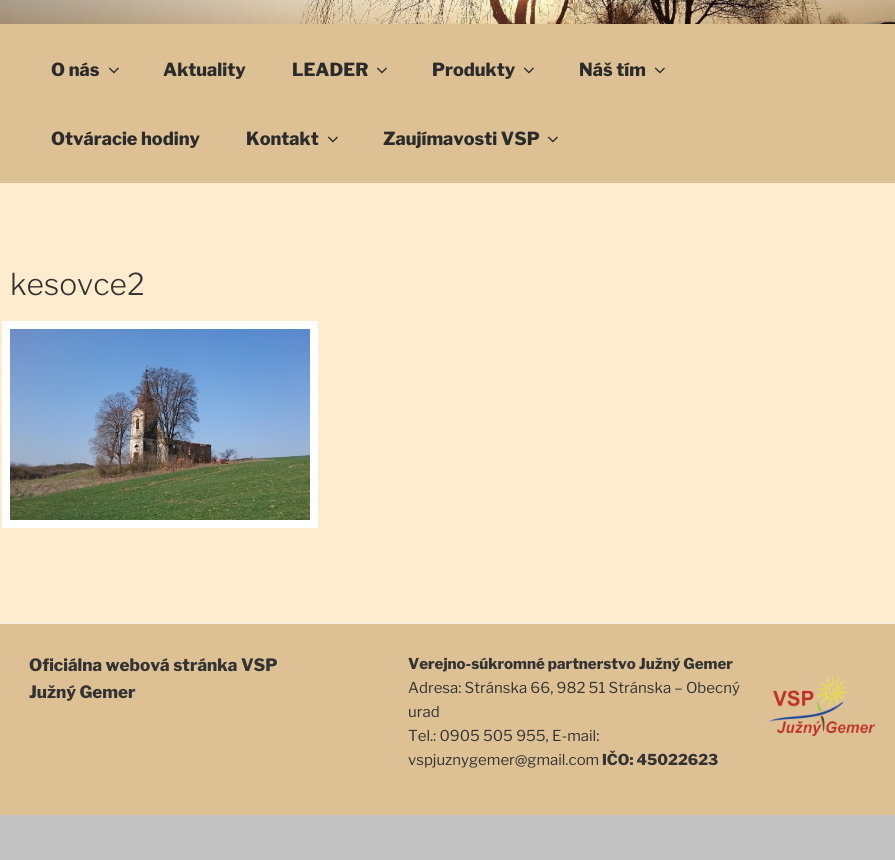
#include <cairo.h>
#include <math.h>
#include <stddef.h>

static cairo_t *ctx;

static void use_color(int r, int g, int b) {
    cairo_set_source_rgb(ctx, r / 255.0, g / 255.0, b / 255.0);
}

static void picture(const char *path, double x, double y, double w, double h) {
    cairo_surface_t *image = cairo_image_surface_create_from_png(path);
    cairo_save(ctx);
    cairo_set_source_surface(ctx, image, x, y);
    cairo_rectangle(ctx, x, y, w, h);
    cairo_fill(ctx);
    cairo_restore(ctx);
    cairo_surface_destroy(image);
}

int main(void) {
    cairo_surface_t *surface = cairo_image_surface_create(CAIRO_FORMAT_RGB24, 895, 860);
    ctx = cairo_create(surface);
    cairo_font_options_t *options = cairo_font_options_create();
    cairo_font_options_set_hint_metrics(options, CAIRO_HINT_METRICS_OFF);
    cairo_font_options_set_hint_style(options, CAIRO_HINT_STYLE_NONE);
    cairo_set_font_options(ctx, options);
    cairo_set_miter_limit(ctx, 4);
    use_color(194, 194, 194);
    cairo_paint(ctx);
    picture("img1.png", 0, 0, 895, 24);
    use_color(221, 193, 148);
    cairo_rectangle(ctx, 0, 24, 895, 159);
    cairo_fill(ctx);
    cairo_select_font_face(ctx, "Libre Franklin Thin", CAIRO_FONT_SLANT_NORMAL, CAIRO_FONT_WEIGHT_NORMAL);
    cairo_set_font_size(ctx, 18);
    use_color(43, 43, 43);
    cairo_move_to(ctx, 51, 76);
    cairo_show_text(ctx, "O nás");
    picture("img2.png", 108, 67, 11, 7);
    cairo_move_to(ctx, 163, 76);
    cairo_show_text(ctx, "Aktuality");
    cairo_move_to(ctx, 292, 76);
    cairo_show_text(ctx, "LEADER");
    picture("img2.png", 376, 67, 11, 7);
    cairo_move_to(ctx, 432, 76);
    cairo_show_text(ctx, "Produkty");
    picture("img2.png", 523, 67, 11, 7);
    cairo_move_to(ctx, 579, 76);
    cairo_show_text(ctx, "Náš tím");
    picture("img2.png", 654, 67, 11, 7);
    cairo_move_to(ctx, 51, 145);
    cairo_show_text(ctx, "Otváracie hodiny");
    cairo_move_to(ctx, 246, 145);
    cairo_show_text(ctx, "Kontakt");
    picture("img2.png", 327, 136, 11, 7);
    cairo_move_to(ctx, 383, 145);
    cairo_show_text(ctx, "Zaujímavosti VSP");
    picture("img2.png", 547, 136, 11, 7);
    use_color(255, 235, 205);
    cairo_rectangle(ctx, 0, 183, 895, 440);
    cairo_fill(ctx);
    cairo_select_font_face(ctx, "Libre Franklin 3 Thin", CAIRO_FONT_SLANT_NORMAL, CAIRO_FONT_WEIGHT_NORMAL);
    cairo_set_font_size(ctx, 30);
    use_color(51, 51, 51);
    cairo_move_to(ctx, 10, 295);
    cairo_show_text(ctx, "kesovce2");
    cairo_rectangle(ctx, 6, 325, 308, 199);
    use_color(255, 255, 255);
    cairo_set_line_width(ctx, 8);
    cairo_stroke(ctx);
    picture("img3.png", 10, 329, 300, 191);
    use_color(221, 193, 148);
    cairo_rectangle(ctx, 0, 624, 895, 191);
    cairo_fill(ctx);
    use_color(238, 238, 238);
    cairo_rectangle(ctx, 0, 623, 895, 1);
    cairo_fill(ctx);
    cairo_select_font_face(ctx, "Libre Franklin Thin", CAIRO_FONT_SLANT_NORMAL, CAIRO_FONT_WEIGHT_NORMAL);
    cairo_set_font_size(ctx, 17);
    use_color(51, 51, 51);
    cairo_move_to(ctx, 29, 671);
    cairo_show_text(ctx, "Oficiálna webová stránka VSP");
    cairo_move_to(ctx, 29, 698);
    cairo_show_text(ctx, "Južný Gemer");
    cairo_set_font_size(ctx, 15);
    cairo_move_to(ctx, 408, 669);
    cairo_show_text(ctx, "Verejno-súkromné partnerstvo Južný Gemer");
    cairo_select_font_face(ctx, "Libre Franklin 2 Thin", CAIRO_FONT_SLANT_NORMAL, CAIRO_FONT_WEIGHT_NORMAL);
    cairo_move_to(ctx, 408, 693);
    cairo_show_text(ctx, "Adresa: Stránska 66, 982 51 Stránska – Obecný");
    picture("img4.png", 767, 676, 109, 61);
    cairo_move_to(ctx, 408, 717);
    cairo_show_text(ctx, "urad");
    cairo_move_to(ctx, 408, 741);
    cairo_show_text(ctx, "Tel.: 0905 505 955, E-mail:");
    cairo_move_to(ctx, 408, 765);
    cairo_show_text(ctx, "vspjuznygemer@gmail.com");
    cairo_select_font_face(ctx, "Libre Franklin Thin", CAIRO_FONT_SLANT_NORMAL, CAIRO_FONT_WEIGHT_NORMAL);
    cairo_move_to(ctx, 602, 765);
    cairo_show_text(ctx, "IČO: 45022623");
    cairo_surface_write_to_png(surface, "result.png");
    cairo_font_options_destroy(options);
    cairo_destroy(ctx);
    cairo_surface_destroy(surface);
    return 0;
}
